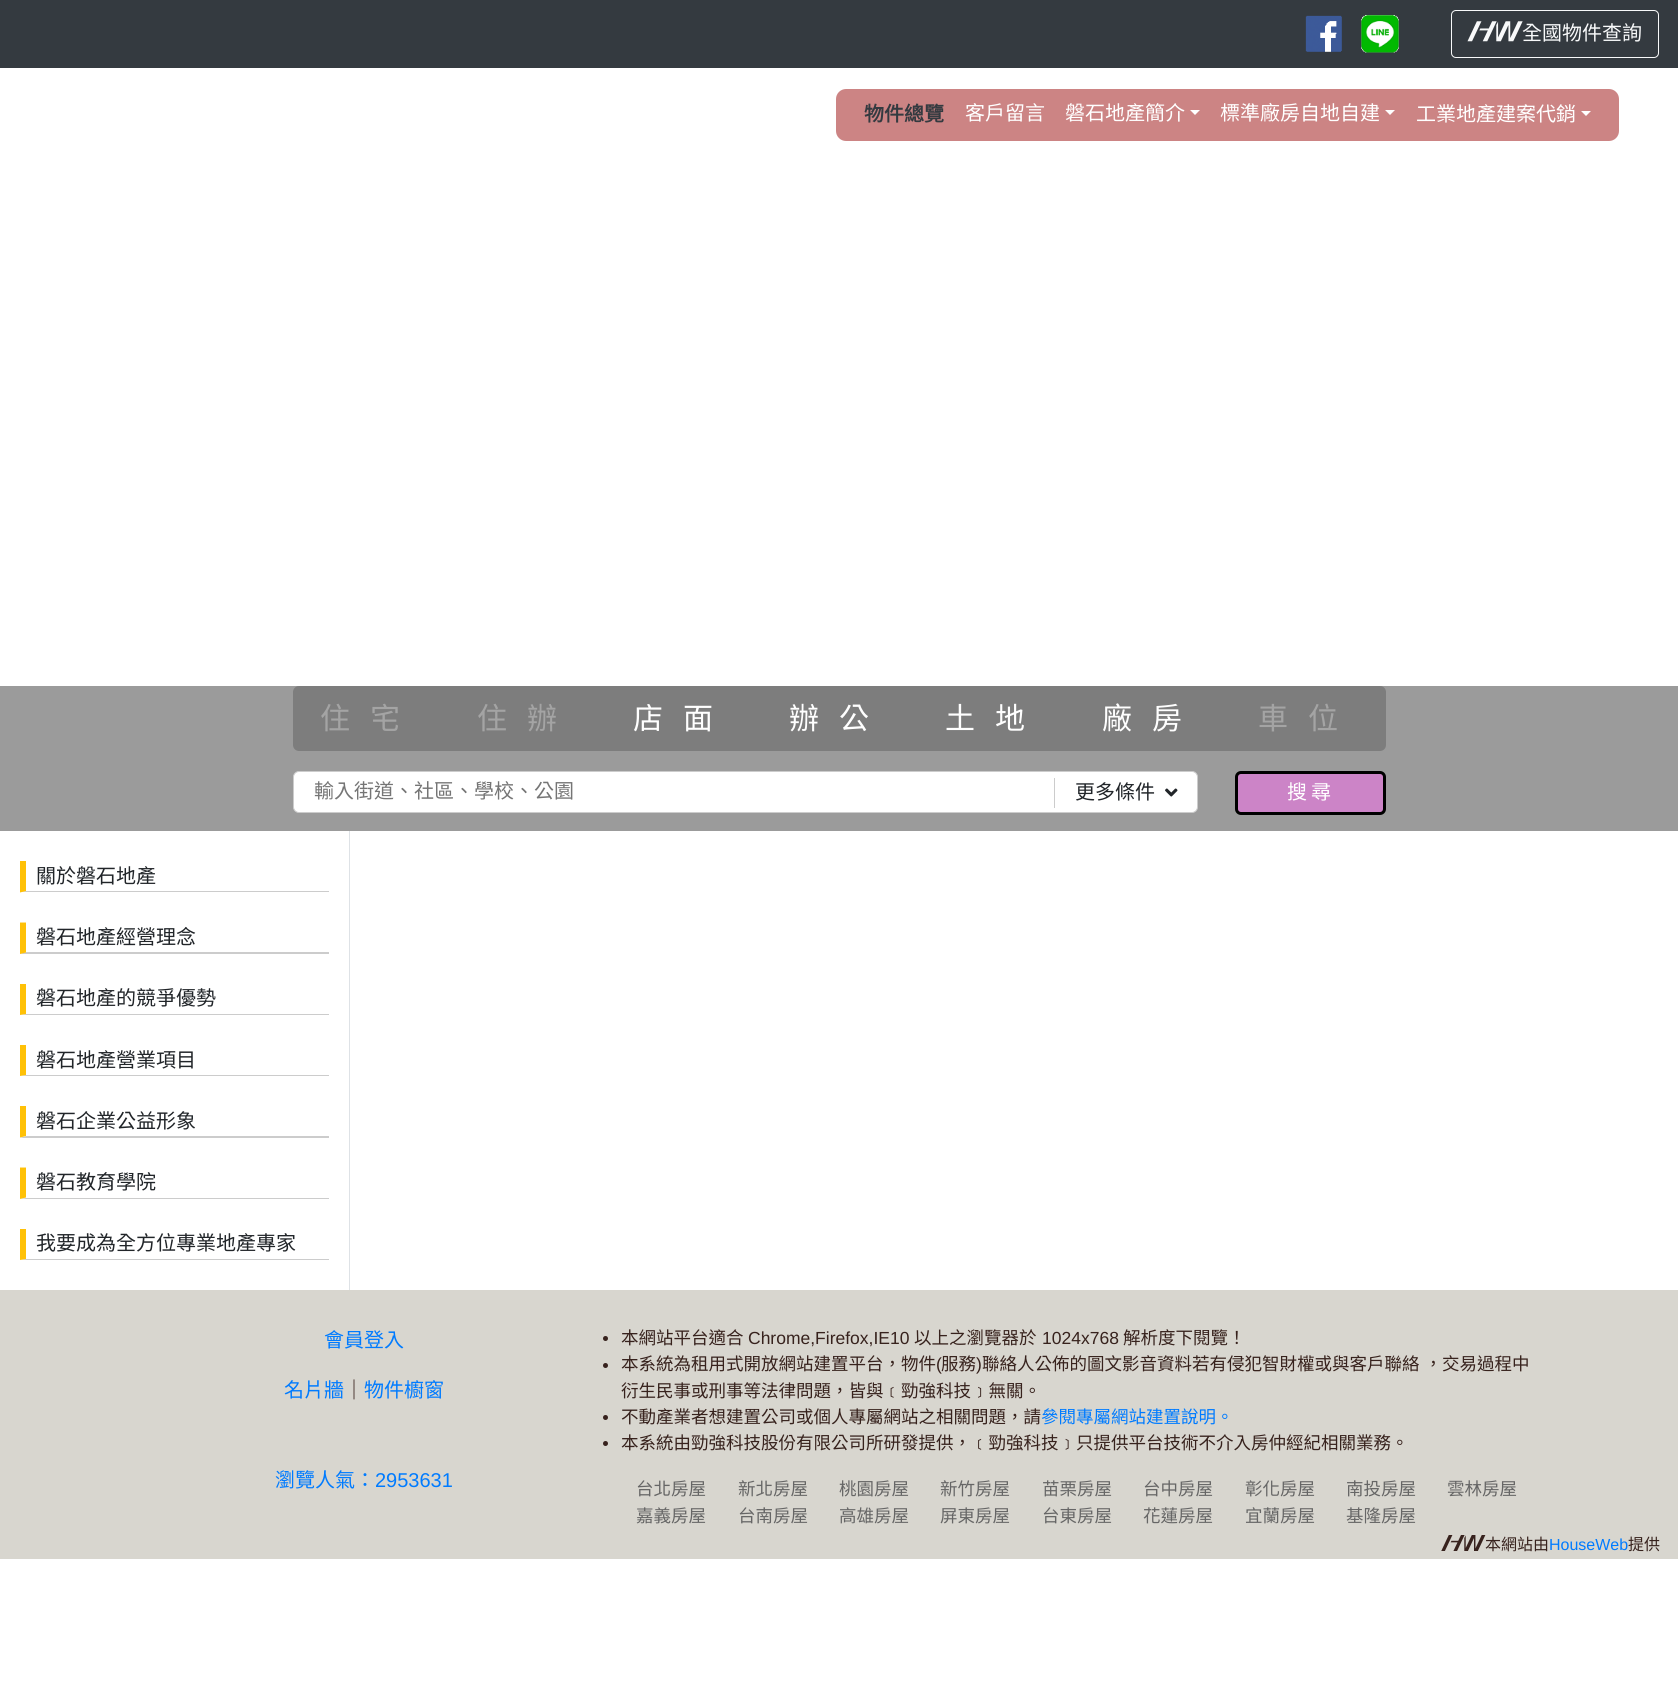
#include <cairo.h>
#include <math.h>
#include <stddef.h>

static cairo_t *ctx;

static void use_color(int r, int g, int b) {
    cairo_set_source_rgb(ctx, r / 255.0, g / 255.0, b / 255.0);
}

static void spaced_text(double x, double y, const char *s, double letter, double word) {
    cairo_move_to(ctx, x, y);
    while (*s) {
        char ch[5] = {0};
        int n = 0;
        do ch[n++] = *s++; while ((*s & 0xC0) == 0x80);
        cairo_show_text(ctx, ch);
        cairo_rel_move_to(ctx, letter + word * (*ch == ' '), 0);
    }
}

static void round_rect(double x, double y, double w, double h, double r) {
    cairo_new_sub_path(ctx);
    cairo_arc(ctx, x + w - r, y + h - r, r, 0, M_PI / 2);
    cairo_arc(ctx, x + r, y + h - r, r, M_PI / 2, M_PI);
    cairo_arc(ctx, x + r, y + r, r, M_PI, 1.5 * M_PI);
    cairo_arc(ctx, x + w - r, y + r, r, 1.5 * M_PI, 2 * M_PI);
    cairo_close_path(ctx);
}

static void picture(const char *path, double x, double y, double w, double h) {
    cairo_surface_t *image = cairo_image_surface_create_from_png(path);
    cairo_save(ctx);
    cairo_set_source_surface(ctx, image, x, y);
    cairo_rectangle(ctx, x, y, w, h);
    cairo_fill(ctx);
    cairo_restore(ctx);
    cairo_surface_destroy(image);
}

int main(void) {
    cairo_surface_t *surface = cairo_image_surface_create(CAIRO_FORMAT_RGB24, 1678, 1684);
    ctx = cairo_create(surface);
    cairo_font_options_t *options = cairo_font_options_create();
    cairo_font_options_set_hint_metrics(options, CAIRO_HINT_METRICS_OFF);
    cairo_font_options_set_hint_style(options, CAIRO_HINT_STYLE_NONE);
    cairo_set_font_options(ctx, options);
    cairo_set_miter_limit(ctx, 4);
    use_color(255, 255, 255);
    cairo_paint(ctx);
    use_color(52, 58, 64);
    cairo_rectangle(ctx, 0, 0, 1678, 68);
    cairo_fill(ctx);
    picture("img1.png", 1305, 15, 37, 37);
    picture("img2.png", 1361, 15, 38, 38);
    round_rect(1451.5, 10.5, 207, 47, 4.5);
    use_color(248, 249, 250);
    cairo_set_line_width(ctx, 1);
    cairo_stroke(ctx);
    picture("img3.png", 1467, 21, 56, 21);
    cairo_select_font_face(ctx, "Noto Sans CJK TC", CAIRO_FONT_SLANT_NORMAL, CAIRO_FONT_WEIGHT_NORMAL);
    cairo_set_font_size(ctx, 20);
    cairo_move_to(ctx, 1522, 40);
    cairo_show_text(ctx, "全國物件查詢");
    use_color(204, 132, 132);
    cairo_new_path(ctx);
    cairo_move_to(ctx, 846, 89);
    cairo_line_to(ctx, 955, 89);
    cairo_line_to(ctx, 955, 141);
    cairo_line_to(ctx, 846, 141);
    cairo_curve_to(ctx, 840.5, 141, 836, 136.5, 836, 131);
    cairo_line_to(ctx, 836, 99);
    cairo_curve_to(ctx, 836, 93.5, 840.5, 89, 846, 89);
    cairo_close_path(ctx);
    cairo_fill(ctx);
    cairo_select_font_face(ctx, "Noto Sans CJK TC", CAIRO_FONT_SLANT_NORMAL, CAIRO_FONT_WEIGHT_BOLD);
    use_color(52, 58, 64);
    cairo_move_to(ctx, 864, 121);
    cairo_show_text(ctx, "物件總覽");
    use_color(204, 132, 132);
    cairo_rectangle(ctx, 955, 89, 450, 52);
    cairo_fill(ctx);
    cairo_select_font_face(ctx, "Noto Sans CJK TC", CAIRO_FONT_SLANT_NORMAL, CAIRO_FONT_WEIGHT_NORMAL);
    use_color(255, 255, 255);
    cairo_move_to(ctx, 965, 120);
    cairo_show_text(ctx, "客戶留言");
    cairo_move_to(ctx, 1065, 120);
    cairo_show_text(ctx, "磐石地產簡介");
    cairo_new_path(ctx);
    cairo_move_to(ctx, 1190, 110);
    cairo_line_to(ctx, 1200, 110);
    cairo_line_to(ctx, 1195, 115);
    cairo_close_path(ctx);
    cairo_fill(ctx);
    cairo_move_to(ctx, 1220, 120);
    cairo_show_text(ctx, "標準廠房自地自建");
    cairo_new_path(ctx);
    cairo_move_to(ctx, 1385, 110);
    cairo_line_to(ctx, 1395, 110);
    cairo_line_to(ctx, 1390, 115);
    cairo_close_path(ctx);
    cairo_fill(ctx);
    use_color(204, 132, 132);
    cairo_new_path(ctx);
    cairo_move_to(ctx, 1405, 89);
    cairo_line_to(ctx, 1609, 89);
    cairo_curve_to(ctx, 1614.5, 89, 1619, 93.5, 1619, 99);
    cairo_line_to(ctx, 1619, 131);
    cairo_curve_to(ctx, 1619, 136.5, 1614.5, 141, 1609, 141);
    cairo_line_to(ctx, 1405, 141);
    cairo_close_path(ctx);
    cairo_fill(ctx);
    use_color(255, 255, 255);
    cairo_move_to(ctx, 1416, 121);
    cairo_show_text(ctx, "工業地產建案代銷");
    cairo_new_path(ctx);
    cairo_move_to(ctx, 1581, 111);
    cairo_line_to(ctx, 1591, 111);
    cairo_line_to(ctx, 1586, 116);
    cairo_close_path(ctx);
    cairo_fill(ctx);
    use_color(155, 155, 155);
    cairo_rectangle(ctx, 0, 686, 1678, 145);
    cairo_fill(ctx);
    use_color(125, 125, 125);
    round_rect(293, 686, 1093, 65, 6);
    cairo_fill(ctx);
    cairo_set_font_size(ctx, 30);
    use_color(164, 164, 164);
    spaced_text(320, 729, "住宅", 20, 0);
    spaced_text(477, 729, "住辦", 20, 0);
    use_color(255, 255, 255);
    spaced_text(633, 729, "店面", 20, 0);
    spaced_text(789, 729, "辦公", 20, 0);
    spaced_text(945, 729, "土地", 20, 0);
    spaced_text(1102, 729, "廠房", 20, 0);
    use_color(164, 164, 164);
    spaced_text(1258, 729, "車位", 20, 0);
    use_color(255, 255, 255);
    round_rect(293.5, 771.5, 904, 41, 5.5);
    cairo_fill_preserve(ctx);
    use_color(204, 204, 204);
    cairo_stroke(ctx);
    cairo_set_font_size(ctx, 20);
    use_color(117, 117, 117);
    cairo_move_to(ctx, 314, 798);
    cairo_show_text(ctx, "輸入街道、社區、學校、公園");
    use_color(204, 204, 204);
    cairo_rectangle(ctx, 1054, 778, 1, 30);
    cairo_fill(ctx);
    use_color(33, 37, 41);
    cairo_move_to(ctx, 1075, 799);
    cairo_show_text(ctx, "更多條件");
    picture("img4.png", 1165, 788, 13, 9);
    use_color(204, 132, 199);
    round_rect(1236.5, 772.5, 148, 41, 4.5);
    cairo_fill_preserve(ctx);
    use_color(0, 0, 0);
    cairo_set_line_width(ctx, 3);
    cairo_stroke(ctx);
    use_color(255, 255, 255);
    spaced_text(1287, 799, "搜尋", 4, 0);
    use_color(222, 226, 230);
    cairo_rectangle(ctx, 349, 831, 1, 459);
    cairo_fill(ctx);
    use_color(204, 204, 204);
    cairo_new_path(ctx);
    cairo_move_to(ctx, 329, 892);
    cairo_line_to(ctx, 20, 892);
    cairo_line_to(ctx, 26, 891);
    cairo_line_to(ctx, 329, 891);
    cairo_close_path(ctx);
    cairo_fill(ctx);
    use_color(255, 193, 7);
    cairo_new_path(ctx);
    cairo_move_to(ctx, 20, 892.5);
    cairo_line_to(ctx, 20, 861);
    cairo_line_to(ctx, 26, 861);
    cairo_line_to(ctx, 26, 891);
    cairo_close_path(ctx);
    cairo_fill(ctx);
    use_color(33, 37, 41);
    cairo_move_to(ctx, 36, 883);
    cairo_show_text(ctx, "關於磐石地產");
    use_color(204, 204, 204);
    cairo_new_path(ctx);
    cairo_move_to(ctx, 329, 954);
    cairo_line_to(ctx, 20, 954);
    cairo_line_to(ctx, 26, 952);
    cairo_line_to(ctx, 329, 952);
    cairo_close_path(ctx);
    cairo_fill(ctx);
    use_color(255, 193, 7);
    cairo_new_path(ctx);
    cairo_move_to(ctx, 20, 954);
    cairo_line_to(ctx, 20, 922.5);
    cairo_line_to(ctx, 26, 922.5);
    cairo_line_to(ctx, 26, 952.5);
    cairo_close_path(ctx);
    cairo_fill(ctx);
    use_color(33, 37, 41);
    cairo_move_to(ctx, 36, 944);
    cairo_show_text(ctx, "磐石地產經營理念");
    use_color(204, 204, 204);
    cairo_new_path(ctx);
    cairo_move_to(ctx, 329, 1015);
    cairo_line_to(ctx, 20, 1015);
    cairo_line_to(ctx, 26, 1014);
    cairo_line_to(ctx, 329, 1014);
    cairo_close_path(ctx);
    cairo_fill(ctx);
    use_color(255, 193, 7);
    cairo_new_path(ctx);
    cairo_move_to(ctx, 20, 1015);
    cairo_line_to(ctx, 20, 984);
    cairo_line_to(ctx, 26, 984);
    cairo_line_to(ctx, 26, 1014);
    cairo_close_path(ctx);
    cairo_fill(ctx);
    use_color(33, 37, 41);
    cairo_move_to(ctx, 36, 1005);
    cairo_show_text(ctx, "磐石地產的競爭優勢");
    use_color(204, 204, 204);
    cairo_new_path(ctx);
    cairo_move_to(ctx, 329, 1076);
    cairo_line_to(ctx, 20, 1076);
    cairo_line_to(ctx, 26, 1075);
    cairo_line_to(ctx, 329, 1075);
    cairo_close_path(ctx);
    cairo_fill(ctx);
    use_color(255, 193, 7);
    cairo_new_path(ctx);
    cairo_move_to(ctx, 20, 1076);
    cairo_line_to(ctx, 20, 1045);
    cairo_line_to(ctx, 26, 1045);
    cairo_line_to(ctx, 26, 1075);
    cairo_close_path(ctx);
    cairo_fill(ctx);
    use_color(33, 37, 41);
    cairo_move_to(ctx, 36, 1067);
    cairo_show_text(ctx, "磐石地產營業項目");
    use_color(204, 204, 204);
    cairo_new_path(ctx);
    cairo_move_to(ctx, 329, 1138);
    cairo_line_to(ctx, 20, 1138);
    cairo_line_to(ctx, 26, 1136);
    cairo_line_to(ctx, 329, 1136);
    cairo_close_path(ctx);
    cairo_fill(ctx);
    use_color(255, 193, 7);
    cairo_new_path(ctx);
    cairo_move_to(ctx, 20, 1137.5);
    cairo_line_to(ctx, 20, 1106);
    cairo_line_to(ctx, 26, 1106);
    cairo_line_to(ctx, 26, 1136);
    cairo_close_path(ctx);
    cairo_fill(ctx);
    use_color(33, 37, 41);
    cairo_move_to(ctx, 36, 1128);
    cairo_show_text(ctx, "磐石企業公益形象");
    use_color(204, 204, 204);
    cairo_new_path(ctx);
    cairo_move_to(ctx, 329, 1199);
    cairo_line_to(ctx, 20, 1199);
    cairo_line_to(ctx, 26, 1198);
    cairo_line_to(ctx, 329, 1198);
    cairo_close_path(ctx);
    cairo_fill(ctx);
    use_color(255, 193, 7);
    cairo_new_path(ctx);
    cairo_move_to(ctx, 20, 1199);
    cairo_line_to(ctx, 20, 1167.5);
    cairo_line_to(ctx, 26, 1167.5);
    cairo_line_to(ctx, 26, 1197.5);
    cairo_close_path(ctx);
    cairo_fill(ctx);
    use_color(33, 37, 41);
    cairo_move_to(ctx, 36, 1189);
    cairo_show_text(ctx, "磐石教育學院");
    use_color(204, 204, 204);
    cairo_new_path(ctx);
    cairo_move_to(ctx, 329, 1260);
    cairo_line_to(ctx, 20, 1260);
    cairo_line_to(ctx, 26, 1259);
    cairo_line_to(ctx, 329, 1259);
    cairo_close_path(ctx);
    cairo_fill(ctx);
    use_color(255, 193, 7);
    cairo_new_path(ctx);
    cairo_move_to(ctx, 20, 1260);
    cairo_line_to(ctx, 20, 1229);
    cairo_line_to(ctx, 26, 1229);
    cairo_line_to(ctx, 26, 1259);
    cairo_close_path(ctx);
    cairo_fill(ctx);
    use_color(33, 37, 41);
    cairo_move_to(ctx, 36, 1250);
    cairo_show_text(ctx, "我要成為全方位專業地產專家");
    use_color(216, 214, 207);
    cairo_rectangle(ctx, 0, 1290, 1678, 269);
    cairo_fill(ctx);
    use_color(0, 123, 255);
    cairo_move_to(ctx, 324, 1347);
    cairo_show_text(ctx, "會員登入");
    cairo_move_to(ctx, 284, 1397);
    cairo_show_text(ctx, "名片牆");
    use_color(55, 34, 29);
    cairo_move_to(ctx, 344, 1397);
    cairo_show_text(ctx, "｜");
    use_color(0, 123, 255);
    cairo_move_to(ctx, 364, 1397);
    cairo_show_text(ctx, "物件櫥窗");
    cairo_move_to(ctx, 275, 1487);
    cairo_show_text(ctx, "瀏覽人氣：");
    cairo_select_font_face(ctx, "Liberation Sans", CAIRO_FONT_SLANT_NORMAL, CAIRO_FONT_WEIGHT_NORMAL);
    cairo_move_to(ctx, 375, 1487);
    cairo_show_text(ctx, "2953631");
    use_color(55, 34, 29);
    cairo_new_path(ctx);
    cairo_arc(ctx, 605.5, 1338.5, 2.5, 0, 2 * M_PI);
    cairo_fill(ctx);
    cairo_select_font_face(ctx, "Noto Sans CJK TC", CAIRO_FONT_SLANT_NORMAL, CAIRO_FONT_WEIGHT_NORMAL);
    cairo_set_font_size(ctx, 17.5);
    cairo_move_to(ctx, 621, 1344);
    cairo_show_text(ctx, "本網站平台適合");
    cairo_select_font_face(ctx, "Liberation Sans", CAIRO_FONT_SLANT_NORMAL, CAIRO_FONT_WEIGHT_NORMAL);
    cairo_move_to(ctx, 748, 1344);
    cairo_show_text(ctx, "Chrome,Firefox,IE10");
    cairo_select_font_face(ctx, "Noto Sans CJK TC", CAIRO_FONT_SLANT_NORMAL, CAIRO_FONT_WEIGHT_NORMAL);
    cairo_move_to(ctx, 914, 1344);
    cairo_show_text(ctx, "以上之瀏覽器於");
    cairo_select_font_face(ctx, "Liberation Sans", CAIRO_FONT_SLANT_NORMAL, CAIRO_FONT_WEIGHT_NORMAL);
    cairo_move_to(ctx, 1042, 1344);
    cairo_show_text(ctx, "1024x768");
    cairo_select_font_face(ctx, "Noto Sans CJK TC", CAIRO_FONT_SLANT_NORMAL, CAIRO_FONT_WEIGHT_NORMAL);
    cairo_move_to(ctx, 1123, 1344);
    cairo_show_text(ctx, "解析度下閱覽！");
    cairo_new_path(ctx);
    cairo_arc(ctx, 605.5, 1365.5, 2.5, 0, 2 * M_PI);
    cairo_fill(ctx);
    cairo_move_to(ctx, 621, 1370);
    cairo_show_text(ctx, "本系統為租用式開放網站建置平台，物件");
    cairo_select_font_face(ctx, "Liberation Sans", CAIRO_FONT_SLANT_NORMAL, CAIRO_FONT_WEIGHT_NORMAL);
    cairo_move_to(ctx, 936, 1370);
    cairo_show_text(ctx, "(");
    cairo_select_font_face(ctx, "Noto Sans CJK TC", CAIRO_FONT_SLANT_NORMAL, CAIRO_FONT_WEIGHT_NORMAL);
    cairo_move_to(ctx, 941, 1370);
    cairo_show_text(ctx, "服務");
    cairo_select_font_face(ctx, "Liberation Sans", CAIRO_FONT_SLANT_NORMAL, CAIRO_FONT_WEIGHT_NORMAL);
    cairo_move_to(ctx, 976, 1370);
    cairo_show_text(ctx, ")");
    cairo_select_font_face(ctx, "Noto Sans CJK TC", CAIRO_FONT_SLANT_NORMAL, CAIRO_FONT_WEIGHT_NORMAL);
    spaced_text(982, 1370, "聯絡人公佈的圖文影音資料若有侵犯智財權或與客戶聯絡 ，交易過程中", 0, 1);
    cairo_move_to(ctx, 621, 1397);
    cairo_show_text(ctx, "衍生民事或刑事等法律問題，皆與﹝勁強科技﹞無關。");
    cairo_new_path(ctx);
    cairo_arc(ctx, 605.5, 1417.5, 2.5, 0, 2 * M_PI);
    cairo_fill(ctx);
    cairo_move_to(ctx, 621, 1423);
    cairo_show_text(ctx, "不動產業者想建置公司或個人專屬網站之相關問題，請");
    use_color(0, 123, 255);
    cairo_move_to(ctx, 1041, 1423);
    cairo_show_text(ctx, "參閱專屬網站建置說明。");
    use_color(55, 34, 29);
    cairo_new_path(ctx);
    cairo_arc(ctx, 605.5, 1443.5, 2.5, 0, 2 * M_PI);
    cairo_fill(ctx);
    cairo_move_to(ctx, 621, 1449);
    cairo_show_text(ctx, "本系統由勁強科技股份有限公司所研發提供，﹝勁強科技﹞只提供平台技術不介入房仲經紀相關業務。");
    use_color(102, 102, 102);
    cairo_move_to(ctx, 636, 1495);
    cairo_show_text(ctx, "台北房屋");
    cairo_move_to(ctx, 738, 1495);
    cairo_show_text(ctx, "新北房屋");
    cairo_move_to(ctx, 839, 1495);
    cairo_show_text(ctx, "桃園房屋");
    cairo_move_to(ctx, 940, 1495);
    cairo_show_text(ctx, "新竹房屋");
    cairo_move_to(ctx, 1042, 1495);
    cairo_show_text(ctx, "苗栗房屋");
    cairo_move_to(ctx, 1143, 1495);
    cairo_show_text(ctx, "台中房屋");
    cairo_move_to(ctx, 1245, 1495);
    cairo_show_text(ctx, "彰化房屋");
    cairo_move_to(ctx, 1346, 1495);
    cairo_show_text(ctx, "南投房屋");
    cairo_move_to(ctx, 1447, 1495);
    cairo_show_text(ctx, "雲林房屋");
    cairo_move_to(ctx, 636, 1522);
    cairo_show_text(ctx, "嘉義房屋");
    cairo_move_to(ctx, 738, 1522);
    cairo_show_text(ctx, "台南房屋");
    cairo_move_to(ctx, 839, 1522);
    cairo_show_text(ctx, "高雄房屋");
    cairo_move_to(ctx, 940, 1522);
    cairo_show_text(ctx, "屏東房屋");
    cairo_move_to(ctx, 1042, 1522);
    cairo_show_text(ctx, "台東房屋");
    cairo_move_to(ctx, 1143, 1522);
    cairo_show_text(ctx, "花蓮房屋");
    cairo_move_to(ctx, 1245, 1522);
    cairo_show_text(ctx, "宜蘭房屋");
    cairo_move_to(ctx, 1346, 1522);
    cairo_show_text(ctx, "基隆房屋");
    picture("img5.png", 1441, 1535, 45, 16);
    cairo_set_font_size(ctx, 16);
    use_color(55, 34, 29);
    cairo_move_to(ctx, 1485, 1550);
    cairo_show_text(ctx, "本網站由");
    cairo_select_font_face(ctx, "Liberation Sans", CAIRO_FONT_SLANT_NORMAL, CAIRO_FONT_WEIGHT_NORMAL);
    use_color(0, 123, 255);
    cairo_move_to(ctx, 1549, 1550);
    cairo_show_text(ctx, "HouseWeb");
    cairo_select_font_face(ctx, "Noto Sans CJK TC", CAIRO_FONT_SLANT_NORMAL, CAIRO_FONT_WEIGHT_NORMAL);
    use_color(55, 34, 29);
    cairo_move_to(ctx, 1628, 1550);
    cairo_show_text(ctx, "提供");
    cairo_surface_write_to_png(surface, "result.png");
    cairo_font_options_destroy(options);
    cairo_destroy(ctx);
    cairo_surface_destroy(surface);
    return 0;
}
